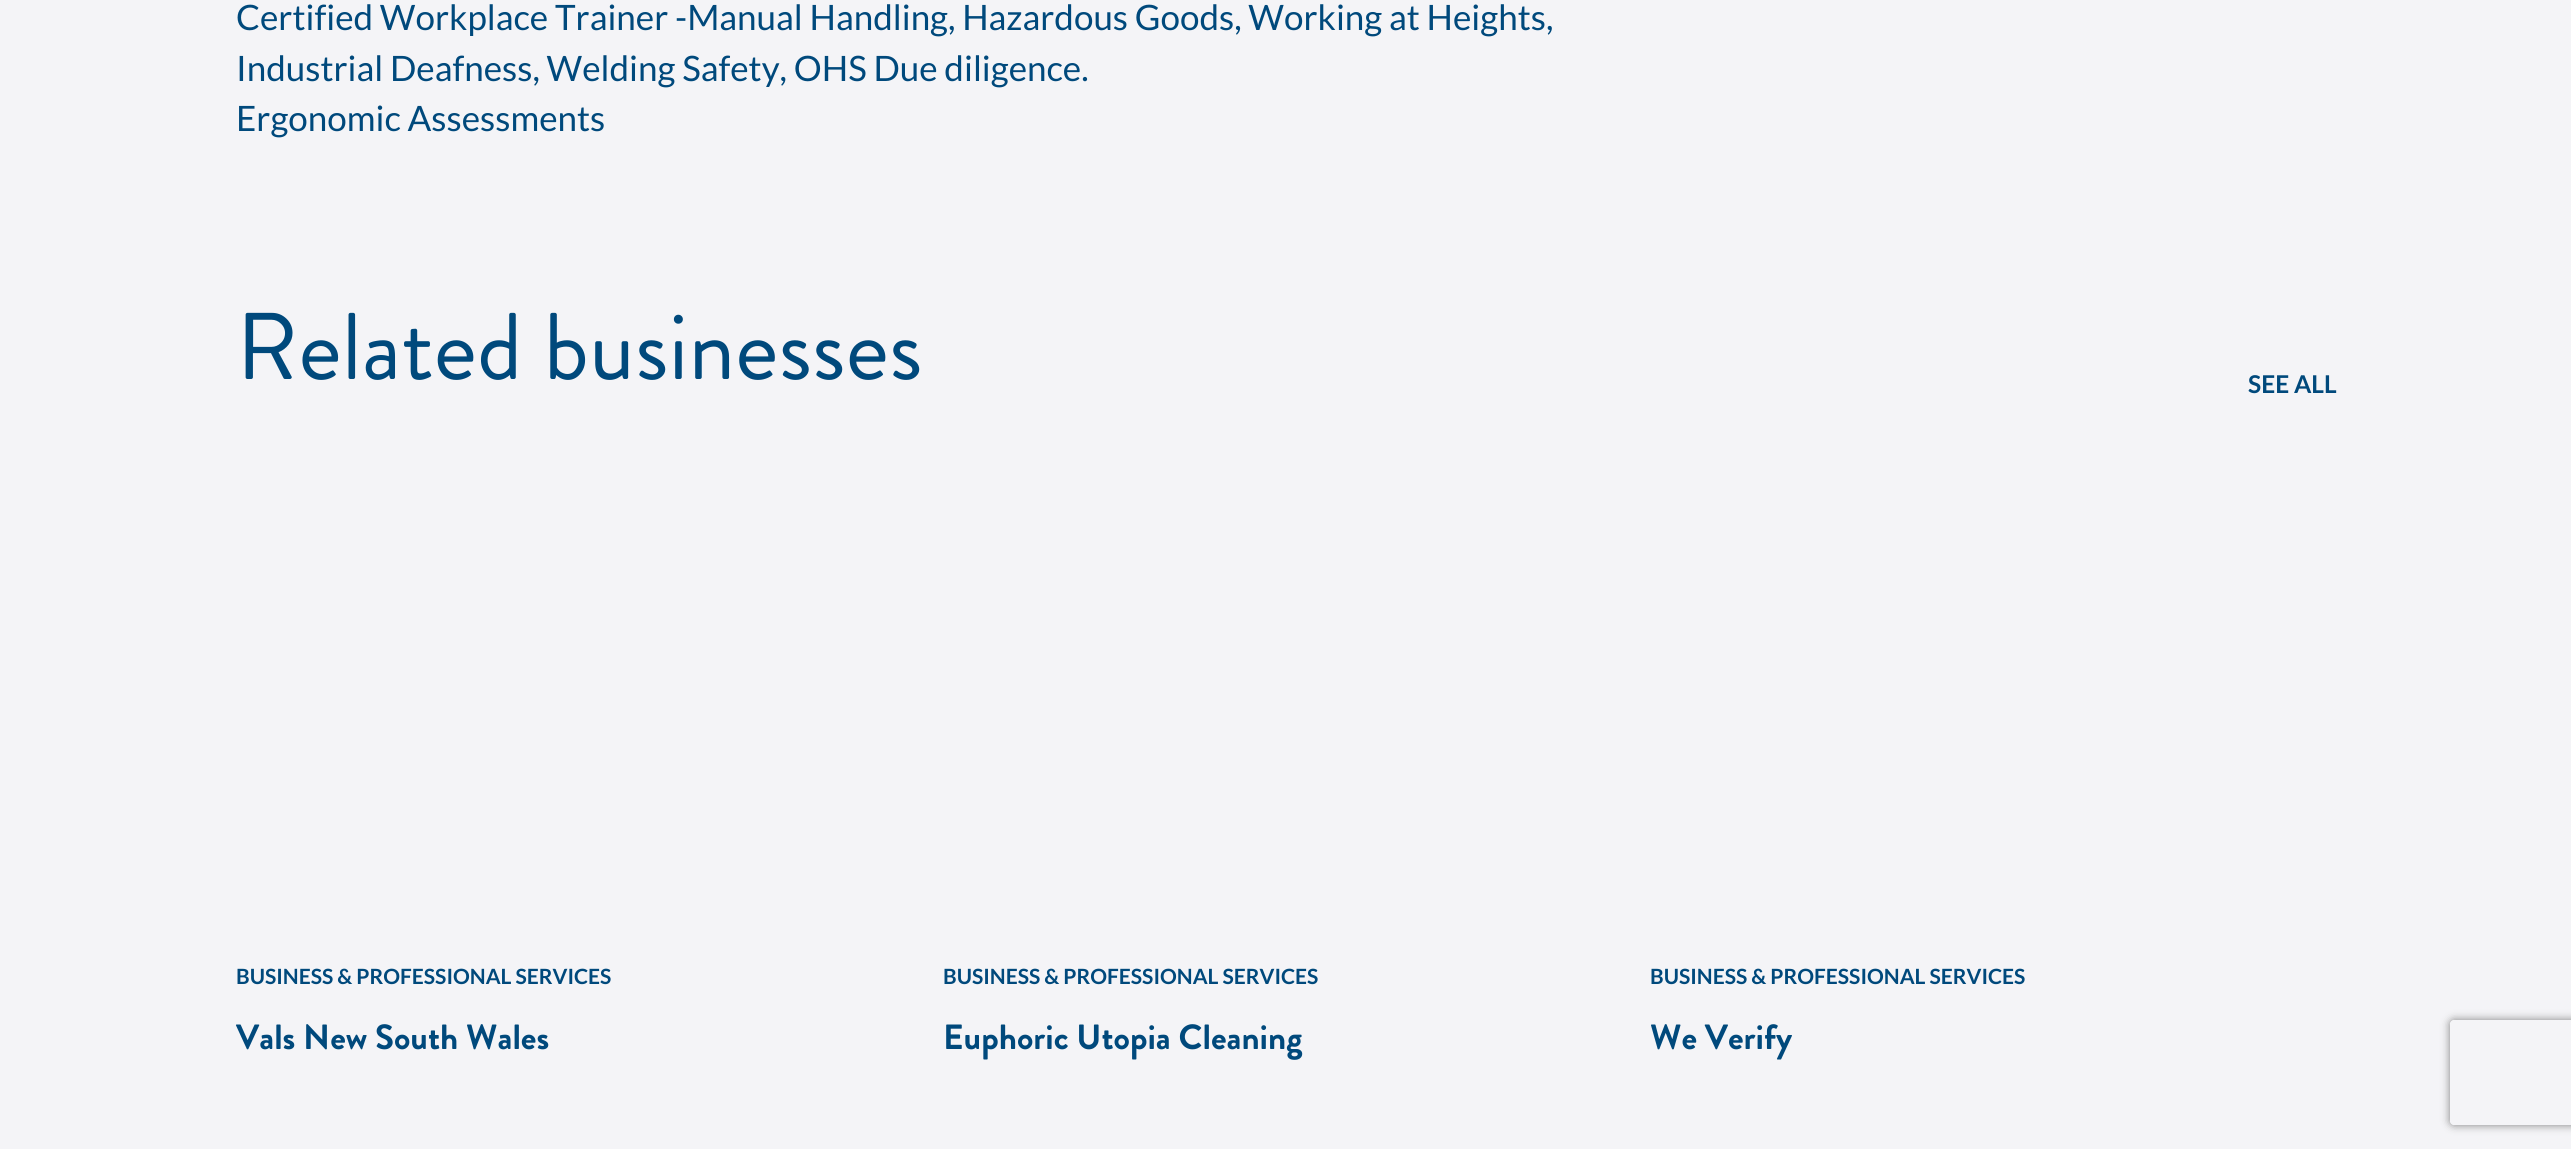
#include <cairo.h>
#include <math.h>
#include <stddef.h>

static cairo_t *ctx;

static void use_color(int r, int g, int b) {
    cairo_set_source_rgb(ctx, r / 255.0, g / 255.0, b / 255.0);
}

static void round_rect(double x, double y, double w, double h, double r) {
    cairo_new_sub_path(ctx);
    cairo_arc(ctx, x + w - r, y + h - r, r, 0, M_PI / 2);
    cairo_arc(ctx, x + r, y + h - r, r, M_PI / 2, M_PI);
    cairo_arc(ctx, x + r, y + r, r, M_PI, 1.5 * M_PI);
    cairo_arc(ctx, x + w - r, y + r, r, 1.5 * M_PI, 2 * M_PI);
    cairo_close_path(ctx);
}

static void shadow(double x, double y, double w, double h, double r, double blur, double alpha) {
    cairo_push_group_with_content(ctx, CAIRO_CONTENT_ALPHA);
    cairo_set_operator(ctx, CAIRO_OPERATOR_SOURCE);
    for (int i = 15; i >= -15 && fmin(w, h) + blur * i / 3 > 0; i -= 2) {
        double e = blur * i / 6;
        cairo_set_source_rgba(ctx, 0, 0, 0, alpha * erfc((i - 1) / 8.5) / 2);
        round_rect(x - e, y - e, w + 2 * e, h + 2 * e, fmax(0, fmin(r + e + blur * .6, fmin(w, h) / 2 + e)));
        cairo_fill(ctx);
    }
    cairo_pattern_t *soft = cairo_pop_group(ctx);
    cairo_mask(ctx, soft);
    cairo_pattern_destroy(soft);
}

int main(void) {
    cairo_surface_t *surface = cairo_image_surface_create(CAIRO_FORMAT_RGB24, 2571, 1149);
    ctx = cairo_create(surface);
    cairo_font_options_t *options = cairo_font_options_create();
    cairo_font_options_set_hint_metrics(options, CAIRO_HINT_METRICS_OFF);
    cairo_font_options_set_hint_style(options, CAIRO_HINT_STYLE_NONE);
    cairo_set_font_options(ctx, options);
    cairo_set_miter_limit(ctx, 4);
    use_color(244, 244, 247);
    cairo_paint(ctx);
    cairo_select_font_face(ctx, "Lato", CAIRO_FONT_SLANT_NORMAL, CAIRO_FONT_WEIGHT_NORMAL);
    cairo_set_font_size(ctx, 35);
    use_color(0, 73, 124);
    cairo_move_to(ctx, 236, 30);
    cairo_show_text(ctx, "Certified Workplace Trainer -Manual Handling, Hazardous Goods, Working at Heights,");
    cairo_move_to(ctx, 236, 81);
    cairo_show_text(ctx, "Industrial Deafness, Welding Safety, OHS Due diligence.");
    cairo_move_to(ctx, 236, 131);
    cairo_show_text(ctx, "Ergonomic Assessments");
    cairo_select_font_face(ctx, "Brandon Grotesque", CAIRO_FONT_SLANT_NORMAL, CAIRO_FONT_WEIGHT_NORMAL);
    cairo_set_font_size(ctx, 94.5);
    cairo_move_to(ctx, 236, 379);
    cairo_show_text(ctx, "Related businesses");
    cairo_select_font_face(ctx, "Lato", CAIRO_FONT_SLANT_NORMAL, CAIRO_FONT_WEIGHT_BOLD);
    cairo_set_font_size(ctx, 24.5);
    cairo_move_to(ctx, 2248, 393);
    cairo_show_text(ctx, "SEE ALL");
    cairo_set_font_size(ctx, 21);
    cairo_move_to(ctx, 236, 984);
    cairo_show_text(ctx, "BUSINESS & PROFESSIONAL SERVICES");
    cairo_select_font_face(ctx, "Brandon Grotesque", CAIRO_FONT_SLANT_NORMAL, CAIRO_FONT_WEIGHT_BOLD);
    cairo_set_font_size(ctx, 35);
    cairo_move_to(ctx, 236, 1049);
    cairo_show_text(ctx, "Vals New South Wales");
    cairo_select_font_face(ctx, "Lato", CAIRO_FONT_SLANT_NORMAL, CAIRO_FONT_WEIGHT_BOLD);
    cairo_set_font_size(ctx, 21);
    cairo_move_to(ctx, 943, 984);
    cairo_show_text(ctx, "BUSINESS & PROFESSIONAL SERVICES");
    cairo_select_font_face(ctx, "Brandon Grotesque", CAIRO_FONT_SLANT_NORMAL, CAIRO_FONT_WEIGHT_BOLD);
    cairo_set_font_size(ctx, 35);
    cairo_move_to(ctx, 943, 1049);
    cairo_show_text(ctx, "Euphoric Utopia Cleaning");
    cairo_select_font_face(ctx, "Lato", CAIRO_FONT_SLANT_NORMAL, CAIRO_FONT_WEIGHT_BOLD);
    cairo_set_font_size(ctx, 21);
    cairo_move_to(ctx, 1650, 984);
    cairo_show_text(ctx, "BUSINESS & PROFESSIONAL SERVICES");
    cairo_select_font_face(ctx, "Brandon Grotesque", CAIRO_FONT_SLANT_NORMAL, CAIRO_FONT_WEIGHT_BOLD);
    cairo_set_font_size(ctx, 35);
    cairo_move_to(ctx, 1650, 1049);
    cairo_show_text(ctx, "We Verify");
    cairo_save(ctx);
    cairo_set_fill_rule(ctx, CAIRO_FILL_RULE_EVEN_ODD);
    cairo_new_path(ctx);
    cairo_move_to(ctx, 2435, 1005);
    cairo_line_to(ctx, 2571, 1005);
    cairo_line_to(ctx, 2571, 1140);
    cairo_line_to(ctx, 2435, 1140);
    cairo_close_path(ctx);
    cairo_move_to(ctx, 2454, 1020);
    cairo_line_to(ctx, 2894, 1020);
    cairo_curve_to(ctx, 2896, 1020, 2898, 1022, 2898, 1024);
    cairo_line_to(ctx, 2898, 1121);
    cairo_curve_to(ctx, 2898, 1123, 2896, 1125, 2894, 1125);
    cairo_line_to(ctx, 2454, 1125);
    cairo_curve_to(ctx, 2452, 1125, 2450, 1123, 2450, 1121);
    cairo_line_to(ctx, 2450, 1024);
    cairo_curve_to(ctx, 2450, 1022, 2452, 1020, 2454, 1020);
    cairo_close_path(ctx);
    cairo_clip(ctx);
    use_color(128, 128, 128);
    shadow(2450, 1020, 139, 105, 4, 4.5, 1);
    cairo_restore(ctx);
    cairo_surface_write_to_png(surface, "result.png");
    cairo_font_options_destroy(options);
    cairo_destroy(ctx);
    cairo_surface_destroy(surface);
    return 0;
}
